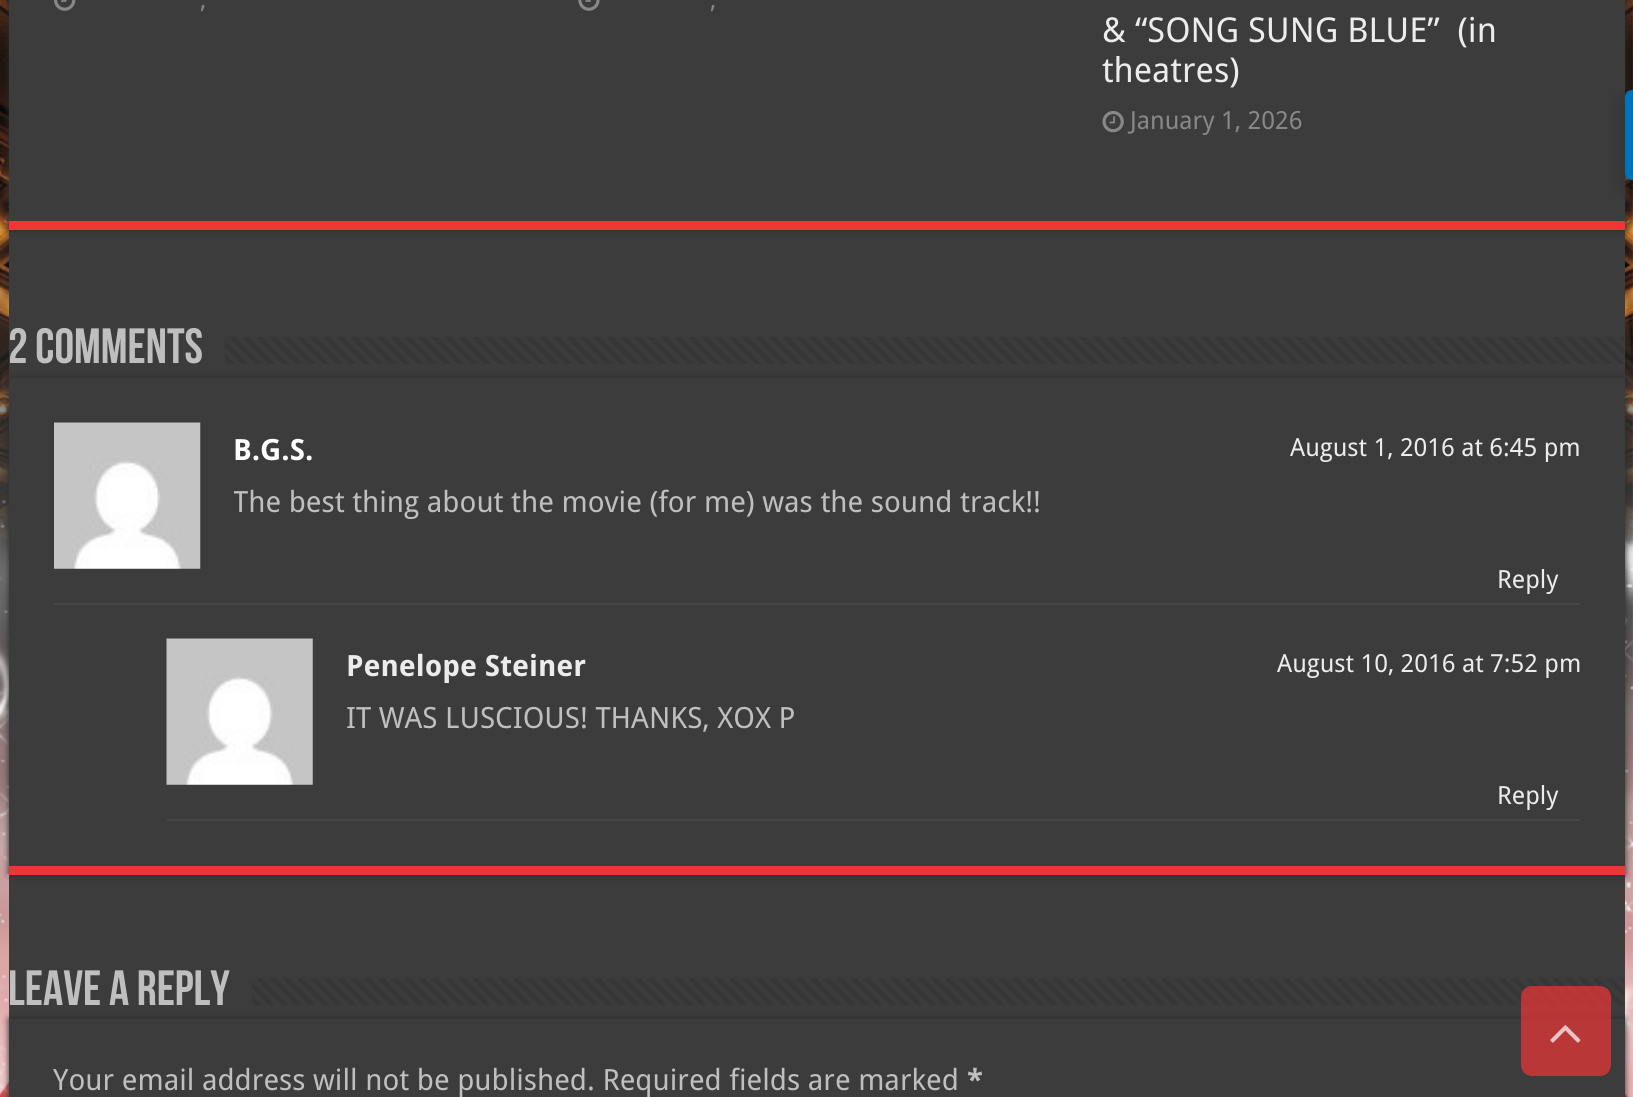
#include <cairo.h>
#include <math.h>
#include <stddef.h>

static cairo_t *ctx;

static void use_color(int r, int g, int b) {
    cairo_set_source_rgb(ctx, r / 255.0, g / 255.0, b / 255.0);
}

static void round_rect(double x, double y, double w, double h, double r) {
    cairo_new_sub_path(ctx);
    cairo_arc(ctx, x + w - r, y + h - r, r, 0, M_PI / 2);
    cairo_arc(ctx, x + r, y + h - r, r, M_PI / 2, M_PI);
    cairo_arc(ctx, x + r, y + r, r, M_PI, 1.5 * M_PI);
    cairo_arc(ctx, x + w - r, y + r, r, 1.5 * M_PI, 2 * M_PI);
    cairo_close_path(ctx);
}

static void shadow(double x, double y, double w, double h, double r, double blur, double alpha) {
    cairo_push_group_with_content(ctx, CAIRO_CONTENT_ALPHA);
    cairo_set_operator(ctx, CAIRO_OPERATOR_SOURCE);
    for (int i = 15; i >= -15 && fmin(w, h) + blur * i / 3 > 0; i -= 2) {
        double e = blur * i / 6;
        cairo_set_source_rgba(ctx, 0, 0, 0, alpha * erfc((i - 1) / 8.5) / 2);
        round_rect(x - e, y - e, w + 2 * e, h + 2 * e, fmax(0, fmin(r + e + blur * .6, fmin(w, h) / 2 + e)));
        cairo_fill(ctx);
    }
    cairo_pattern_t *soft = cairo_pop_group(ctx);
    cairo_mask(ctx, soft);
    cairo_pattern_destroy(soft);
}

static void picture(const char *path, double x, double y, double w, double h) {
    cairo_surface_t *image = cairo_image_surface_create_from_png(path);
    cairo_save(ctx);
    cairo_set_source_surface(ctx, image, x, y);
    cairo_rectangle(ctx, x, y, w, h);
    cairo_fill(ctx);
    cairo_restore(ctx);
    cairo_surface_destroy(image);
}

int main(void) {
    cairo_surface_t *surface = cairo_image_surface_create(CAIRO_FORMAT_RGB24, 1633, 1097);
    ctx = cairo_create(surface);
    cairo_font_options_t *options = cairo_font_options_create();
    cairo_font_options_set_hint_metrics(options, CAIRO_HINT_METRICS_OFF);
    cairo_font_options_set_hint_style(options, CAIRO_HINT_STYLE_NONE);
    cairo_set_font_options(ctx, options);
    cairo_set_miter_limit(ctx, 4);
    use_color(255, 255, 255);
    cairo_paint(ctx);
    picture("img1.png", 1632, 0, 1, 1097);
    picture("img2.png", 0, 0, 1633, 1097);
    use_color(60, 60, 60);
    cairo_rectangle(ctx, 9, 230, 1616, 789);
    cairo_fill(ctx);
    use_color(42, 42, 42);
    shadow(9, -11, 1616, 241, 0, 3.5, 1);
    use_color(60, 60, 60);
    cairo_rectangle(ctx, 9, 0, 1616, 221);
    cairo_fill(ctx);
    use_color(239, 54, 54);
    cairo_rectangle(ctx, 9, 221, 1616, 9);
    cairo_fill(ctx);
    picture("img3.png", 54, 0, 22, 11);
    cairo_select_font_face(ctx, "Droid Sans", CAIRO_FONT_SLANT_NORMAL, CAIRO_FONT_WEIGHT_NORMAL);
    cairo_set_font_size(ctx, 24.9);
    use_color(136, 136, 136);
    cairo_move_to(ctx, 200, 8);
    cairo_show_text(ctx, ",");
    picture("img4.png", 578, 0, 22, 11);
    cairo_move_to(ctx, 710, 8);
    cairo_show_text(ctx, ",");
    cairo_set_font_size(ctx, 34.25);
    use_color(236, 236, 236);
    cairo_move_to(ctx, 1102, 42);
    cairo_show_text(ctx, "& “SONG SUNG BLUE”  (in");
    cairo_move_to(ctx, 1102, 82);
    cairo_show_text(ctx, "theatres)");
    picture("img5.png", 1102, 111, 22, 22);
    cairo_set_font_size(ctx, 24.9);
    use_color(136, 136, 136);
    cairo_move_to(ctx, 1130, 129);
    cairo_show_text(ctx, "January 1, 2026");
    cairo_select_font_face(ctx, "Bebas Neue", CAIRO_FONT_SLANT_NORMAL, CAIRO_FONT_WEIGHT_BOLD);
    cairo_set_font_size(ctx, 49.5);
    use_color(191, 191, 191);
    cairo_move_to(ctx, 8, 363);
    cairo_show_text(ctx, "2 comments");
    picture("img6.png", 225, 337, 1399, 27);
    use_color(42, 42, 42);
    shadow(9, 378, 1616, 497, 0, 3.5, 1);
    use_color(60, 60, 60);
    cairo_rectangle(ctx, 9, 378, 1616, 488);
    cairo_fill(ctx);
    use_color(239, 54, 54);
    cairo_rectangle(ctx, 9, 866, 1616, 9);
    cairo_fill(ctx);
    use_color(71, 71, 71);
    cairo_rectangle(ctx, 54, 603, 1526, 2);
    cairo_fill(ctx);
    picture("img7.png", 54, 422, 147, 147);
    cairo_select_font_face(ctx, "Droid Sans", CAIRO_FONT_SLANT_NORMAL, CAIRO_FONT_WEIGHT_BOLD);
    cairo_set_font_size(ctx, 29.25);
    use_color(255, 255, 255);
    cairo_move_to(ctx, 233, 460);
    cairo_show_text(ctx, "B.G.S.");
    cairo_select_font_face(ctx, "Droid Sans", CAIRO_FONT_SLANT_NORMAL, CAIRO_FONT_WEIGHT_NORMAL);
    cairo_set_font_size(ctx, 24.9);
    use_color(236, 236, 236);
    cairo_move_to(ctx, 1290, 456);
    cairo_show_text(ctx, "August 1, 2016 at 6:45 pm");
    cairo_save(ctx);
    cairo_rectangle(ctx, 234, 423, 1346, 180);
    cairo_clip(ctx);
    cairo_set_font_size(ctx, 29.25);
    use_color(191, 191, 191);
    cairo_move_to(ctx, 233, 512);
    cairo_show_text(ctx, "The best thing about the movie (for me) was the sound track!!");
    cairo_restore(ctx);
    cairo_set_font_size(ctx, 25);
    cairo_move_to(ctx, 1497, 588);
    cairo_show_text(ctx, "Reply");
    use_color(71, 71, 71);
    cairo_rectangle(ctx, 167, 819, 1413, 2);
    cairo_fill(ctx);
    picture("img8.png", 166, 638, 147, 147);
    cairo_select_font_face(ctx, "Droid Sans", CAIRO_FONT_SLANT_NORMAL, CAIRO_FONT_WEIGHT_BOLD);
    cairo_set_font_size(ctx, 29.25);
    use_color(236, 236, 236);
    cairo_move_to(ctx, 346, 676);
    cairo_show_text(ctx, "Penelope Steiner");
    cairo_select_font_face(ctx, "Droid Sans", CAIRO_FONT_SLANT_NORMAL, CAIRO_FONT_WEIGHT_NORMAL);
    cairo_set_font_size(ctx, 24.9);
    cairo_move_to(ctx, 1277, 672);
    cairo_show_text(ctx, "August 10, 2016 at 7:52 pm");
    cairo_save(ctx);
    cairo_rectangle(ctx, 347, 639, 1233, 180);
    cairo_clip(ctx);
    cairo_set_font_size(ctx, 29.25);
    use_color(191, 191, 191);
    cairo_move_to(ctx, 346, 728);
    cairo_show_text(ctx, "IT WAS LUSCIOUS! THANKS, XOX P");
    cairo_restore(ctx);
    cairo_set_font_size(ctx, 25);
    cairo_move_to(ctx, 1497, 804);
    cairo_show_text(ctx, "Reply");
    cairo_select_font_face(ctx, "Bebas Neue", CAIRO_FONT_SLANT_NORMAL, CAIRO_FONT_WEIGHT_BOLD);
    cairo_set_font_size(ctx, 49.5);
    use_color(191, 191, 191);
    cairo_move_to(ctx, 8, 1005);
    cairo_show_text(ctx, "Leave a Reply");
    picture("img9.png", 252, 978, 1372, 27);
    use_color(42, 42, 42);
    shadow(9, 1019, 1616, 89, 0, 3.5, 1);
    use_color(60, 60, 60);
    cairo_rectangle(ctx, 9, 1019, 1616, 78);
    cairo_fill(ctx);
    cairo_select_font_face(ctx, "Droid Sans", CAIRO_FONT_SLANT_NORMAL, CAIRO_FONT_WEIGHT_NORMAL);
    cairo_set_font_size(ctx, 29.25);
    use_color(191, 191, 191);
    cairo_move_to(ctx, 53, 1090);
    cairo_show_text(ctx, "Your email address will not be published. Required fields are marked");
    cairo_select_font_face(ctx, "Droid Sans", CAIRO_FONT_SLANT_NORMAL, CAIRO_FONT_WEIGHT_BOLD);
    cairo_move_to(ctx, 967, 1090);
    cairo_show_text(ctx, "*");
    use_color(0, 0, 0);
    shadow(1625, 99, 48, 90, 7, 11, 0.2);
    use_color(0, 115, 183);
    cairo_new_path(ctx);
    cairo_move_to(ctx, 1632, 90);
    cairo_line_to(ctx, 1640, 90);
    cairo_line_to(ctx, 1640, 180);
    cairo_line_to(ctx, 1632, 180);
    cairo_curve_to(ctx, 1628, 180, 1625, 177, 1625, 173);
    cairo_line_to(ctx, 1625, 97);
    cairo_curve_to(ctx, 1625, 93, 1628, 90, 1632, 90);
    cairo_close_path(ctx);
    cairo_fill(ctx);
    cairo_set_source_rgba(ctx, 0.937, 0.212, 0.212, 0.7);
    round_rect(1521, 986, 90, 90, 11);
    cairo_fill(ctx);
    picture("img10.png", 1550, 1025, 31, 18);
    cairo_surface_write_to_png(surface, "result.png");
    cairo_font_options_destroy(options);
    cairo_destroy(ctx);
    cairo_surface_destroy(surface);
    return 0;
}
